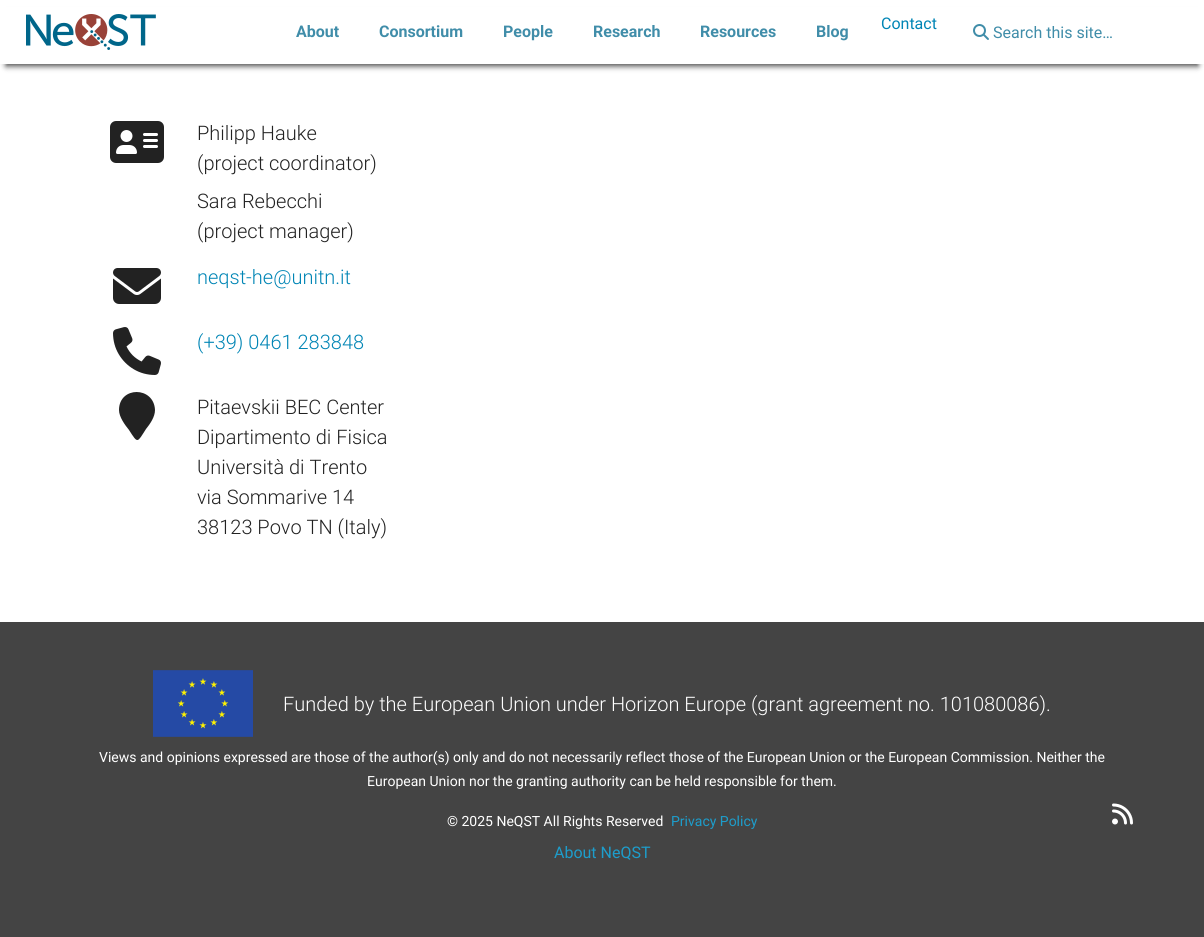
#include <cairo.h>
#include <math.h>
#include <stddef.h>

static cairo_t *ctx;

static void use_color(int r, int g, int b) {
    cairo_set_source_rgb(ctx, r / 255.0, g / 255.0, b / 255.0);
}

static void round_rect(double x, double y, double w, double h, double r) {
    cairo_new_sub_path(ctx);
    cairo_arc(ctx, x + w - r, y + h - r, r, 0, M_PI / 2);
    cairo_arc(ctx, x + r, y + h - r, r, M_PI / 2, M_PI);
    cairo_arc(ctx, x + r, y + r, r, M_PI, 1.5 * M_PI);
    cairo_arc(ctx, x + w - r, y + r, r, 1.5 * M_PI, 2 * M_PI);
    cairo_close_path(ctx);
}

static void shadow(double x, double y, double w, double h, double r, double blur, double alpha) {
    cairo_push_group_with_content(ctx, CAIRO_CONTENT_ALPHA);
    cairo_set_operator(ctx, CAIRO_OPERATOR_SOURCE);
    for (int i = 15; i >= -15 && fmin(w, h) + blur * i / 3 > 0; i -= 2) {
        double e = blur * i / 6;
        cairo_set_source_rgba(ctx, 0, 0, 0, alpha * erfc((i - 1) / 8.5) / 2);
        round_rect(x - e, y - e, w + 2 * e, h + 2 * e, fmax(0, fmin(r + e + blur * .6, fmin(w, h) / 2 + e)));
        cairo_fill(ctx);
    }
    cairo_pattern_t *soft = cairo_pop_group(ctx);
    cairo_mask(ctx, soft);
    cairo_pattern_destroy(soft);
}

static void picture(const char *path, double x, double y, double w, double h) {
    cairo_surface_t *image = cairo_image_surface_create_from_png(path);
    cairo_save(ctx);
    cairo_set_source_surface(ctx, image, x, y);
    cairo_rectangle(ctx, x, y, w, h);
    cairo_fill(ctx);
    cairo_restore(ctx);
    cairo_surface_destroy(image);
}

int main(void) {
    cairo_surface_t *surface = cairo_image_surface_create(CAIRO_FORMAT_RGB24, 1204, 937);
    ctx = cairo_create(surface);
    cairo_font_options_t *options = cairo_font_options_create();
    cairo_font_options_set_hint_metrics(options, CAIRO_HINT_METRICS_OFF);
    cairo_font_options_set_hint_style(options, CAIRO_HINT_STYLE_NONE);
    cairo_set_font_options(ctx, options);
    cairo_set_miter_limit(ctx, 4);
    use_color(255, 255, 255);
    cairo_paint(ctx);
    use_color(68, 68, 68);
    shadow(6, 14, 1192, 52, 0, 3, 1);
    use_color(255, 255, 255);
    cairo_rectangle(ctx, 0, 7, 1204, 57);
    cairo_fill(ctx);
    picture("img1.png", 26, 14, 130, 36);
    cairo_select_font_face(ctx, "Roboto", CAIRO_FONT_SLANT_NORMAL, CAIRO_FONT_WEIGHT_NORMAL);
    cairo_set_font_size(ctx, 16);
    use_color(0, 133, 181);
    cairo_move_to(ctx, 881, 29);
    cairo_show_text(ctx, "Contact");
    cairo_select_font_face(ctx, "Roboto", CAIRO_FONT_SLANT_NORMAL, CAIRO_FONT_WEIGHT_BOLD);
    use_color(64, 141, 169);
    cairo_move_to(ctx, 296, 37);
    cairo_show_text(ctx, "About");
    cairo_move_to(ctx, 379, 37);
    cairo_show_text(ctx, "Consortium");
    cairo_move_to(ctx, 503, 37);
    cairo_show_text(ctx, "People");
    cairo_move_to(ctx, 593, 37);
    cairo_show_text(ctx, "Research");
    cairo_move_to(ctx, 700, 37);
    cairo_show_text(ctx, "Resources");
    cairo_move_to(ctx, 816, 37);
    cairo_show_text(ctx, "Blog");
    picture("img2.png", 973, 24, 16, 16);
    cairo_select_font_face(ctx, "Roboto", CAIRO_FONT_SLANT_NORMAL, CAIRO_FONT_WEIGHT_NORMAL);
    cairo_move_to(ctx, 993, 38);
    cairo_show_text(ctx, "Search this site…");
    picture("img3.png", 110, 121, 54, 42);
    cairo_select_font_face(ctx, "Roboto Light", CAIRO_FONT_SLANT_NORMAL, CAIRO_FONT_WEIGHT_NORMAL);
    cairo_set_font_size(ctx, 20);
    use_color(34, 34, 34);
    cairo_move_to(ctx, 197, 140);
    cairo_show_text(ctx, "Philipp Hauke");
    cairo_move_to(ctx, 197, 170);
    cairo_show_text(ctx, "(project coordinator)");
    cairo_move_to(ctx, 197, 208);
    cairo_show_text(ctx, "Sara Rebecchi");
    cairo_move_to(ctx, 197, 238);
    cairo_show_text(ctx, "(project manager)");
    picture("img4.png", 113, 268, 48, 36);
    use_color(0, 133, 181);
    cairo_move_to(ctx, 197, 284);
    cairo_show_text(ctx, "neqst-he@unitn.it");
    picture("img5.png", 113, 327, 48, 48);
    cairo_move_to(ctx, 197, 349);
    cairo_show_text(ctx, "(+39) 0461 283848");
    use_color(34, 34, 34);
    cairo_new_path(ctx);
    cairo_move_to(ctx, 155, 410);
    cairo_curve_to(ctx, 155, 417, 150, 424, 146, 429);
    cairo_curve_to(ctx, 137, 443, 138, 444, 129, 430);
    cairo_curve_to(ctx, 125, 425, 119, 417, 119, 410);
    cairo_curve_to(ctx, 119, 386, 154, 386, 155, 410);
    cairo_close_path(ctx);
    cairo_fill(ctx);
    cairo_move_to(ctx, 197, 414);
    cairo_show_text(ctx, "Pitaevskii BEC Center");
    cairo_move_to(ctx, 197, 444);
    cairo_show_text(ctx, "Dipartimento di Fisica");
    cairo_move_to(ctx, 197, 474);
    cairo_show_text(ctx, "Università di Trento");
    cairo_move_to(ctx, 197, 504);
    cairo_show_text(ctx, "via Sommarive 14");
    cairo_move_to(ctx, 197, 534);
    cairo_show_text(ctx, "38123 Povo TN (Italy)");
    use_color(68, 68, 68);
    cairo_rectangle(ctx, 0, 622, 1204, 315);
    cairo_fill(ctx);
    picture("img6.png", 153, 670, 100, 67);
    use_color(255, 255, 255);
    cairo_move_to(ctx, 283, 711);
    cairo_show_text(ctx, "Funded by the European Union under Horizon Europe (grant agreement no. 101080086).");
    cairo_select_font_face(ctx, "Roboto", CAIRO_FONT_SLANT_NORMAL, CAIRO_FONT_WEIGHT_NORMAL);
    cairo_set_font_size(ctx, 14);
    cairo_move_to(ctx, 99, 762);
    cairo_show_text(ctx, "Views and opinions expressed are those of the author(s) only and do not necessarily reflect those of the European Union or the European Commission. Neither the");
    cairo_move_to(ctx, 367, 786);
    cairo_show_text(ctx, "European Union nor the granting authority can be held responsible for them.");
    cairo_move_to(ctx, 447, 826);
    cairo_show_text(ctx, "© 2025 NeQST All Rights Reserved");
    use_color(29, 157, 203);
    cairo_move_to(ctx, 671, 826);
    cairo_show_text(ctx, "Privacy Policy");
    cairo_set_font_size(ctx, 16);
    cairo_move_to(ctx, 554, 858);
    cairo_show_text(ctx, "About NeQST");
    picture("img7.png", 1112, 803, 21, 22);
    cairo_surface_write_to_png(surface, "result.png");
    cairo_font_options_destroy(options);
    cairo_destroy(ctx);
    cairo_surface_destroy(surface);
    return 0;
}
